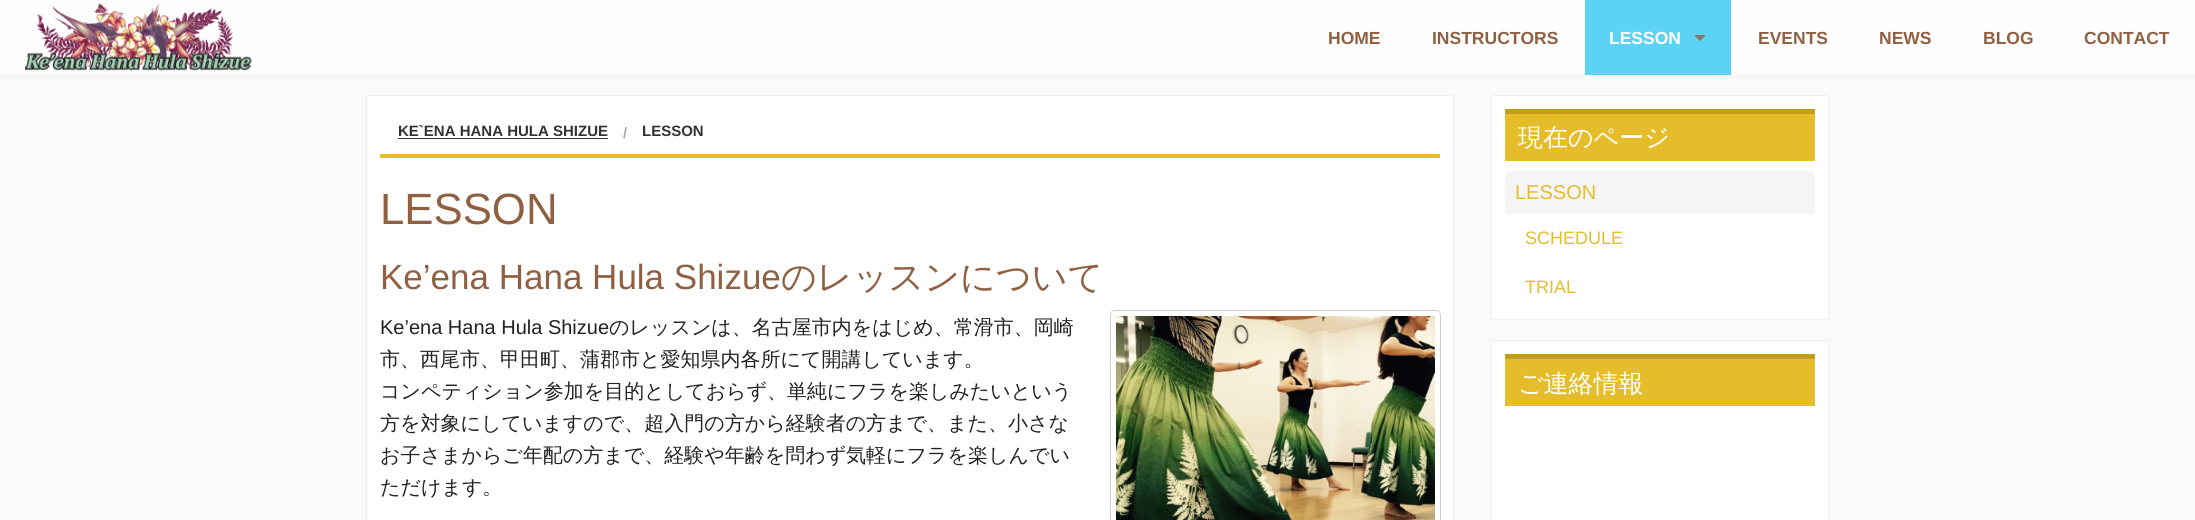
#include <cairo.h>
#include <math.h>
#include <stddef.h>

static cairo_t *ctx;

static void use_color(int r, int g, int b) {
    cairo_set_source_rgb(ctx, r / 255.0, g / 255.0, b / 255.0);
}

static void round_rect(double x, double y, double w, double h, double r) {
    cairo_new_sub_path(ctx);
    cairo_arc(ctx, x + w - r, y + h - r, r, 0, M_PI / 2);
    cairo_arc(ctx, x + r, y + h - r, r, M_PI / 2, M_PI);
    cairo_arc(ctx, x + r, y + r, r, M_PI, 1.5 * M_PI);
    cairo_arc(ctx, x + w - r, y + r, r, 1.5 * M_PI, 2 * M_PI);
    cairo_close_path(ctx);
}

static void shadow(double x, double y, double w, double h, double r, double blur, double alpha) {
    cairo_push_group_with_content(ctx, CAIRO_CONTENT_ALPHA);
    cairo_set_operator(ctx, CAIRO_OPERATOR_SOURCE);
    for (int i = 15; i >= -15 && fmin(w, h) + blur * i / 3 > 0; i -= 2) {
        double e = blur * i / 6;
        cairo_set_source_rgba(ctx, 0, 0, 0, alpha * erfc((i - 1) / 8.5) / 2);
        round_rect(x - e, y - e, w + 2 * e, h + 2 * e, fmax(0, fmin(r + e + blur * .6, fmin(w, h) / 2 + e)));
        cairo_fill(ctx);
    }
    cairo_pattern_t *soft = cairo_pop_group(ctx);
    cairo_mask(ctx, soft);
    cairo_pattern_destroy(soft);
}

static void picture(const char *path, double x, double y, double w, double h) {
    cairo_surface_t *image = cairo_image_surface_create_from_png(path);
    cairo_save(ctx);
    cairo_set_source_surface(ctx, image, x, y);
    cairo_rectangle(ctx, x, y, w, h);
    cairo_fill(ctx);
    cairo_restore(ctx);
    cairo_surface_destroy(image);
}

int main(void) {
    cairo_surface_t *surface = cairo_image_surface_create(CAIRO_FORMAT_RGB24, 2195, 520);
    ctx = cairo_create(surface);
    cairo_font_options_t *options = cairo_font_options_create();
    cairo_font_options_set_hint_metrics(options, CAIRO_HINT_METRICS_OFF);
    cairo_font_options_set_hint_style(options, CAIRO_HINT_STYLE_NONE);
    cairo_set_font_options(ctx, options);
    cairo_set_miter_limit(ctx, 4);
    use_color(250, 250, 250);
    cairo_paint(ctx);
    use_color(230, 230, 230);
    shadow(0, 0, 2195, 75, 0, 3, 0.8);
    use_color(254, 254, 254);
    cairo_rectangle(ctx, 0, 0, 2195, 75);
    cairo_fill(ctx);
    picture("img1.png", 25, 3, 227, 68);
    cairo_select_font_face(ctx, "Liberation Sans", CAIRO_FONT_SLANT_NORMAL, CAIRO_FONT_WEIGHT_BOLD);
    cairo_set_font_size(ctx, 17.5);
    use_color(144, 96, 66);
    cairo_move_to(ctx, 1328, 44);
    cairo_show_text(ctx, "HOME");
    cairo_move_to(ctx, 1432, 44);
    cairo_show_text(ctx, "INSTRUCTORS");
    use_color(93, 211, 243);
    cairo_rectangle(ctx, 1585, 0, 146, 75);
    cairo_fill(ctx);
    use_color(255, 255, 255);
    cairo_move_to(ctx, 1609, 44);
    cairo_show_text(ctx, "LESSON");
    use_color(134, 119, 101);
    cairo_new_path(ctx);
    cairo_move_to(ctx, 1694, 35);
    cairo_line_to(ctx, 1706, 35);
    cairo_line_to(ctx, 1700, 41);
    cairo_close_path(ctx);
    cairo_fill(ctx);
    use_color(144, 96, 66);
    cairo_move_to(ctx, 1758, 44);
    cairo_show_text(ctx, "EVENTS");
    cairo_move_to(ctx, 1879, 44);
    cairo_show_text(ctx, "NEWS");
    cairo_move_to(ctx, 1983, 44);
    cairo_show_text(ctx, "BLOG");
    cairo_move_to(ctx, 2084, 44);
    cairo_show_text(ctx, "CONTACT");
    use_color(255, 255, 255);
    cairo_rectangle(ctx, 366.5, 95.5, 1087, 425);
    cairo_fill_preserve(ctx);
    use_color(239, 239, 239);
    cairo_set_line_width(ctx, 1);
    cairo_stroke(ctx);
    use_color(229, 189, 43);
    cairo_rectangle(ctx, 380, 154, 1060, 4);
    cairo_fill(ctx);
    cairo_set_font_size(ctx, 15);
    use_color(51, 51, 51);
    cairo_move_to(ctx, 398, 136);
    cairo_show_text(ctx, "KE`ENA HANA HULA SHIZUE");
    cairo_rectangle(ctx, 398, 138, 210, 1);
    cairo_fill(ctx);
    use_color(170, 170, 170);
    cairo_move_to(ctx, 623, 138);
    cairo_show_text(ctx, "/");
    use_color(51, 51, 51);
    cairo_move_to(ctx, 642, 136);
    cairo_show_text(ctx, "LESSON");
    cairo_select_font_face(ctx, "Liberation Sans", CAIRO_FONT_SLANT_NORMAL, CAIRO_FONT_WEIGHT_NORMAL);
    cairo_set_font_size(ctx, 43.75);
    use_color(144, 96, 66);
    cairo_move_to(ctx, 380, 224);
    cairo_show_text(ctx, "LESSON");
    cairo_set_font_size(ctx, 35);
    cairo_move_to(ctx, 380, 289);
    cairo_show_text(ctx, "Ke’ena Hana Hula Shizue");
    cairo_select_font_face(ctx, "WenQuanYi Zen Hei Medium", CAIRO_FONT_SLANT_NORMAL, CAIRO_FONT_WEIGHT_NORMAL);
    cairo_move_to(ctx, 781, 289);
    cairo_show_text(ctx, "のレッスンについて");
    cairo_select_font_face(ctx, "Liberation Sans", CAIRO_FONT_SLANT_NORMAL, CAIRO_FONT_WEIGHT_NORMAL);
    cairo_set_font_size(ctx, 20);
    use_color(34, 34, 34);
    cairo_move_to(ctx, 380, 334);
    cairo_show_text(ctx, "Ke’ena Hana Hula Shizue");
    cairo_select_font_face(ctx, "WenQuanYi Zen Hei Medium", CAIRO_FONT_SLANT_NORMAL, CAIRO_FONT_WEIGHT_NORMAL);
    cairo_move_to(ctx, 609, 334);
    cairo_show_text(ctx, "のレッスンは、名古屋市内をはじめ、常滑市、岡崎");
    cairo_move_to(ctx, 380, 366);
    cairo_show_text(ctx, "市、西尾市、甲田町、蒲郡市と愛知県内各所にて開講しています。");
    cairo_move_to(ctx, 380, 398);
    cairo_show_text(ctx, "コンペティション参加を目的としておらず、単純にフラを楽しみたいという");
    cairo_move_to(ctx, 380, 430);
    cairo_show_text(ctx, "方を対象にしていますので、超入門の方から経験者の方まで、また、小さな");
    cairo_move_to(ctx, 380, 462);
    cairo_show_text(ctx, "お子さまからご年配の方まで、経験や年齢を問わず気軽にフラを楽しんでい");
    cairo_move_to(ctx, 380, 494);
    cairo_show_text(ctx, "ただけます。");
    round_rect(1110.5, 310.5, 330, 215, 4.5);
    use_color(204, 204, 204);
    cairo_stroke(ctx);
    round_rect(1113.5, 313.5, 324, 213, 1.5);
    use_color(255, 255, 255);
    cairo_set_line_width(ctx, 5);
    cairo_stroke(ctx);
    picture("img2.png", 1116, 316, 319, 204);
    cairo_rectangle(ctx, 1491.5, 95.5, 337, 224);
    cairo_fill_preserve(ctx);
    use_color(239, 239, 239);
    cairo_set_line_width(ctx, 1);
    cairo_stroke(ctx);
    use_color(229, 189, 43);
    cairo_rectangle(ctx, 1505, 114, 310, 47);
    cairo_fill(ctx);
    use_color(194, 157, 24);
    cairo_rectangle(ctx, 1505, 109, 310, 5);
    cairo_fill(ctx);
    cairo_set_font_size(ctx, 25);
    use_color(255, 255, 255);
    cairo_move_to(ctx, 1518, 146);
    cairo_show_text(ctx, "現在のページ");
    use_color(245, 245, 245);
    round_rect(1505, 171, 310, 43, 5);
    cairo_fill(ctx);
    cairo_select_font_face(ctx, "Liberation Sans", CAIRO_FONT_SLANT_NORMAL, CAIRO_FONT_WEIGHT_NORMAL);
    cairo_set_font_size(ctx, 20);
    use_color(229, 189, 43);
    cairo_move_to(ctx, 1515, 199);
    cairo_show_text(ctx, "LESSON");
    cairo_set_font_size(ctx, 18);
    cairo_move_to(ctx, 1525, 244);
    cairo_show_text(ctx, "SCHEDULE");
    cairo_move_to(ctx, 1525, 293);
    cairo_show_text(ctx, "TRIAL");
    use_color(255, 255, 255);
    cairo_rectangle(ctx, 1491.5, 340.5, 337, 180);
    cairo_fill_preserve(ctx);
    use_color(239, 239, 239);
    cairo_stroke(ctx);
    use_color(229, 189, 43);
    cairo_rectangle(ctx, 1505, 359, 310, 47);
    cairo_fill(ctx);
    use_color(194, 157, 24);
    cairo_rectangle(ctx, 1505, 354, 310, 5);
    cairo_fill(ctx);
    cairo_select_font_face(ctx, "WenQuanYi Zen Hei Medium", CAIRO_FONT_SLANT_NORMAL, CAIRO_FONT_WEIGHT_NORMAL);
    cairo_set_font_size(ctx, 25);
    use_color(255, 255, 255);
    cairo_move_to(ctx, 1518, 392);
    cairo_show_text(ctx, "ご連絡情報");
    cairo_surface_write_to_png(surface, "result.png");
    cairo_font_options_destroy(options);
    cairo_destroy(ctx);
    cairo_surface_destroy(surface);
    return 0;
}
